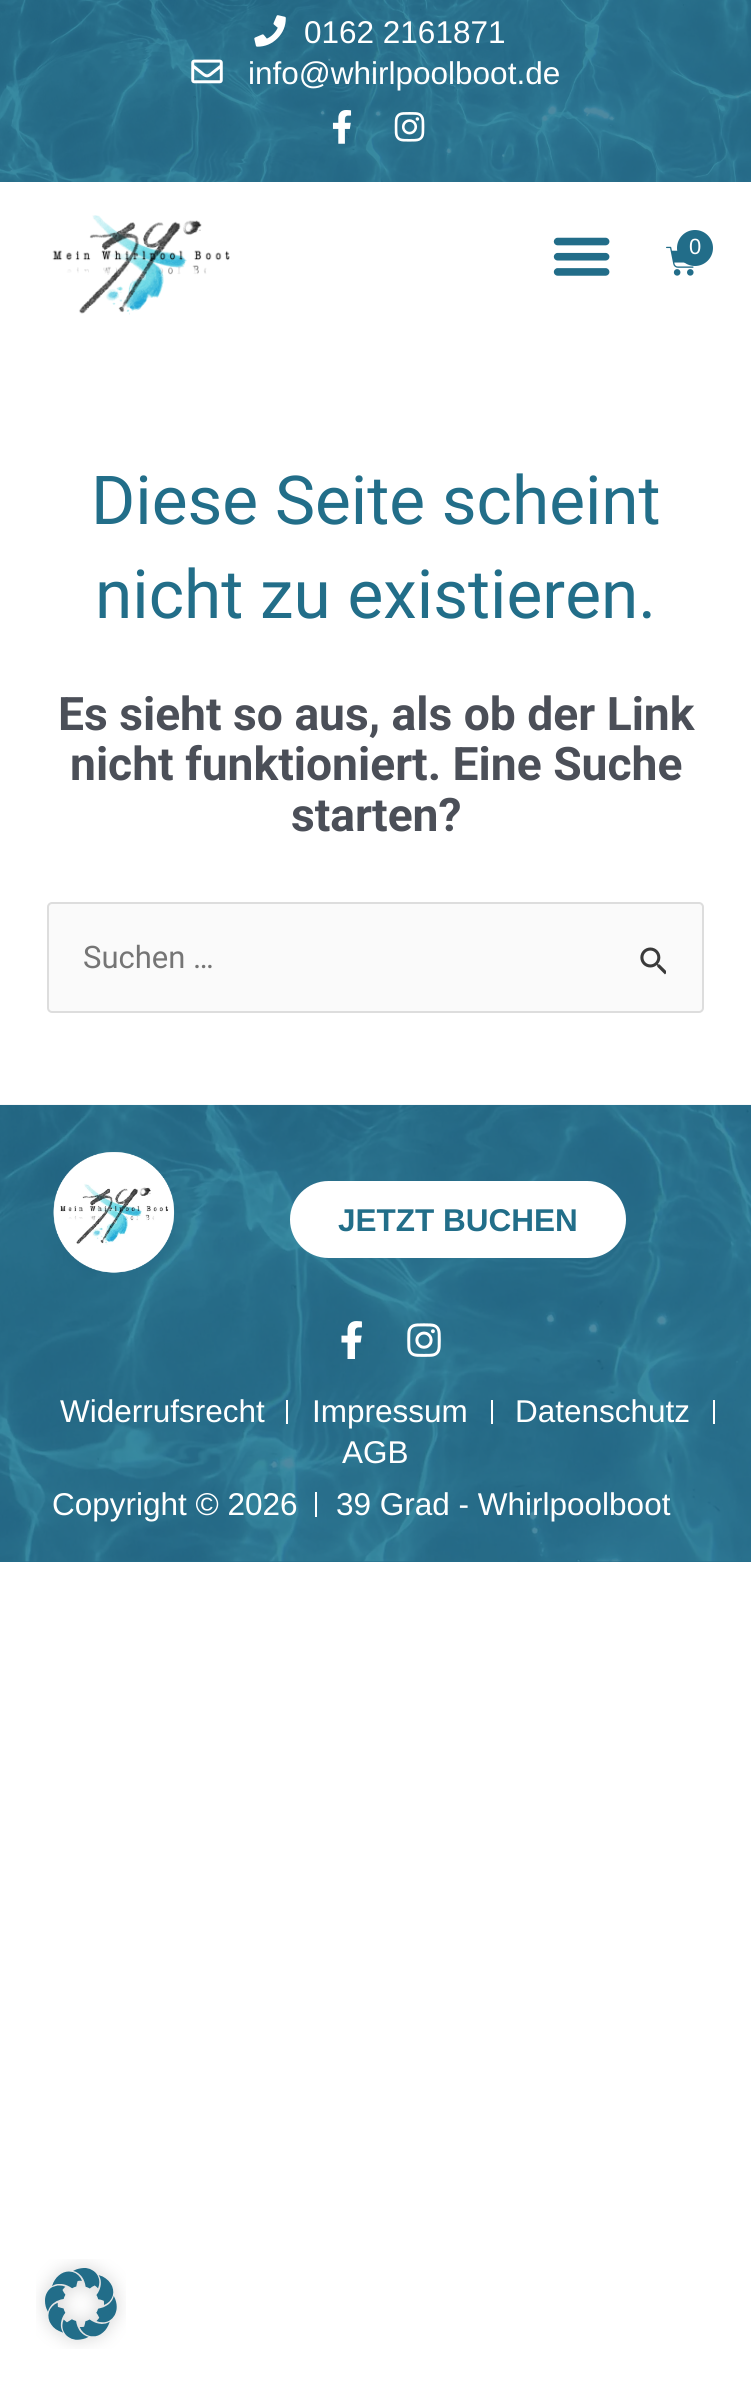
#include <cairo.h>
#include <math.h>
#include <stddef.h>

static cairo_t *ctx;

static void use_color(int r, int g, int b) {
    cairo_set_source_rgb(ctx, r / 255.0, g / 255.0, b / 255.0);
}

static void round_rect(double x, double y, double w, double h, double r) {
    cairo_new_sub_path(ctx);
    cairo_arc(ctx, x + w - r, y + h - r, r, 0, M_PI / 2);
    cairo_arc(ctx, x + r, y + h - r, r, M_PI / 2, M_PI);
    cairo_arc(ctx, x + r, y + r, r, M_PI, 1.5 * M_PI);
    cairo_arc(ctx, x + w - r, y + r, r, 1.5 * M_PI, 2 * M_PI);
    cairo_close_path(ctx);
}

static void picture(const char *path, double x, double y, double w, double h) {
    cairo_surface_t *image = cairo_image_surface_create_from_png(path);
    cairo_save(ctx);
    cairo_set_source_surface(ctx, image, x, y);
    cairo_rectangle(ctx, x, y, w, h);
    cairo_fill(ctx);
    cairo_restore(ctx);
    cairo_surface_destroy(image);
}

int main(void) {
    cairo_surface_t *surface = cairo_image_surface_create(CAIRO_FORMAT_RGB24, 751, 2385);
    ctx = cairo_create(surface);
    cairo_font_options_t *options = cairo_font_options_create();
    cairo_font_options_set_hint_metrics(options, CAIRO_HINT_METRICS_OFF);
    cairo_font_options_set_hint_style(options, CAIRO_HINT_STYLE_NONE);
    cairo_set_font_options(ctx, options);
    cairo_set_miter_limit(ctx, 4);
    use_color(255, 255, 255);
    cairo_paint(ctx);
    use_color(34, 109, 137);
    cairo_rectangle(ctx, 0, 0, 751, 182);
    cairo_fill(ctx);
    picture("img1.png", 0, 0, 751, 182);
    picture("img2.png", 254, 15, 32, 32);
    cairo_select_font_face(ctx, "Liberation Sans", CAIRO_FONT_SLANT_NORMAL, CAIRO_FONT_WEIGHT_NORMAL);
    cairo_set_font_size(ctx, 31.5);
    use_color(255, 255, 255);
    cairo_move_to(ctx, 304, 43);
    cairo_show_text(ctx, "0162 2161871");
    picture("img3.png", 191, 59, 32, 25);
    cairo_move_to(ctx, 248, 84);
    cairo_show_text(ctx, "info@whirlpoolboot.de");
    picture("img4.png", 332, 110, 20, 34);
    picture("img5.png", 394, 112, 31, 30);
    picture("img6.png", 52, 215, 178, 100);
    picture("img7.png", 553, 237, 57, 39);
    picture("img8.png", 666, 246, 28, 30);
    use_color(34, 109, 137);
    cairo_arc(ctx, 695, 248, 18, 0, 2 * M_PI);
    cairo_fill(ctx);
    cairo_set_font_size(ctx, 22);
    use_color(255, 255, 255);
    cairo_move_to(ctx, 689, 254);
    cairo_show_text(ctx, "0");
    cairo_select_font_face(ctx, "Roboto", CAIRO_FONT_SLANT_NORMAL, CAIRO_FONT_WEIGHT_NORMAL);
    cairo_set_font_size(ctx, 67.5);
    use_color(34, 110, 137);
    cairo_move_to(ctx, 91, 524);
    cairo_show_text(ctx, "Diese Seite scheint");
    cairo_move_to(ctx, 95, 618);
    cairo_show_text(ctx, "nicht zu existieren.");
    cairo_select_font_face(ctx, "Roboto", CAIRO_FONT_SLANT_NORMAL, CAIRO_FONT_WEIGHT_BOLD);
    cairo_set_font_size(ctx, 46.2);
    use_color(75, 79, 88);
    cairo_move_to(ctx, 58, 730);
    cairo_show_text(ctx, "Es sieht so aus, als ob der Link");
    cairo_move_to(ctx, 70, 780);
    cairo_show_text(ctx, "nicht funktioniert. Eine Suche");
    cairo_move_to(ctx, 291, 831);
    cairo_show_text(ctx, "starten?");
    use_color(250, 250, 250);
    round_rect(48, 903, 655, 109, 4);
    cairo_fill_preserve(ctx);
    use_color(221, 221, 221);
    cairo_stroke(ctx);
    cairo_select_font_face(ctx, "Roboto", CAIRO_FONT_SLANT_NORMAL, CAIRO_FONT_WEIGHT_NORMAL);
    cairo_set_font_size(ctx, 31);
    use_color(117, 117, 117);
    cairo_move_to(ctx, 83, 968);
    cairo_show_text(ctx, "Suchen …");
    picture("img9.png", 640, 947, 26, 28);
    use_color(34, 109, 137);
    cairo_rectangle(ctx, 0, 1105, 751, 457);
    cairo_fill(ctx);
    picture("img10.png", 0, 1104, 751, 458);
    picture("img11.png", 53, 1152, 122, 121);
    use_color(255, 255, 255);
    round_rect(291, 1182, 334, 75, 37.5);
    cairo_fill_preserve(ctx);
    cairo_stroke(ctx);
    cairo_select_font_face(ctx, "Liberation Sans", CAIRO_FONT_SLANT_NORMAL, CAIRO_FONT_WEIGHT_BOLD);
    cairo_set_font_size(ctx, 31.5);
    use_color(34, 110, 137);
    cairo_move_to(ctx, 338, 1231);
    cairo_show_text(ctx, "JETZT BUCHEN");
    picture("img12.png", 341, 1321, 21, 38);
    picture("img13.png", 407, 1323, 34, 34);
    cairo_select_font_face(ctx, "Liberation Sans", CAIRO_FONT_SLANT_NORMAL, CAIRO_FONT_WEIGHT_NORMAL);
    use_color(255, 255, 255);
    cairo_move_to(ctx, 60, 1422);
    cairo_show_text(ctx, "Widerrufsrecht");
    cairo_rectangle(ctx, 286, 1400, 2, 24);
    cairo_fill(ctx);
    cairo_move_to(ctx, 312, 1422);
    cairo_show_text(ctx, "Impressum");
    cairo_rectangle(ctx, 491, 1400, 2, 24);
    cairo_fill(ctx);
    cairo_move_to(ctx, 515, 1422);
    cairo_show_text(ctx, "Datenschutz");
    cairo_rectangle(ctx, 713, 1400, 2, 24);
    cairo_fill(ctx);
    cairo_move_to(ctx, 342, 1463);
    cairo_show_text(ctx, "AGB");
    cairo_move_to(ctx, 52, 1515);
    cairo_show_text(ctx, "Copyright © 2026");
    cairo_rectangle(ctx, 315, 1492, 2, 25);
    cairo_fill(ctx);
    cairo_move_to(ctx, 336, 1515);
    cairo_show_text(ctx, "39 Grad - Whirlpoolboot");
    picture("img14.png", 36, 2259, 90, 90);
    cairo_surface_write_to_png(surface, "result.png");
    cairo_font_options_destroy(options);
    cairo_destroy(ctx);
    cairo_surface_destroy(surface);
    return 0;
}
